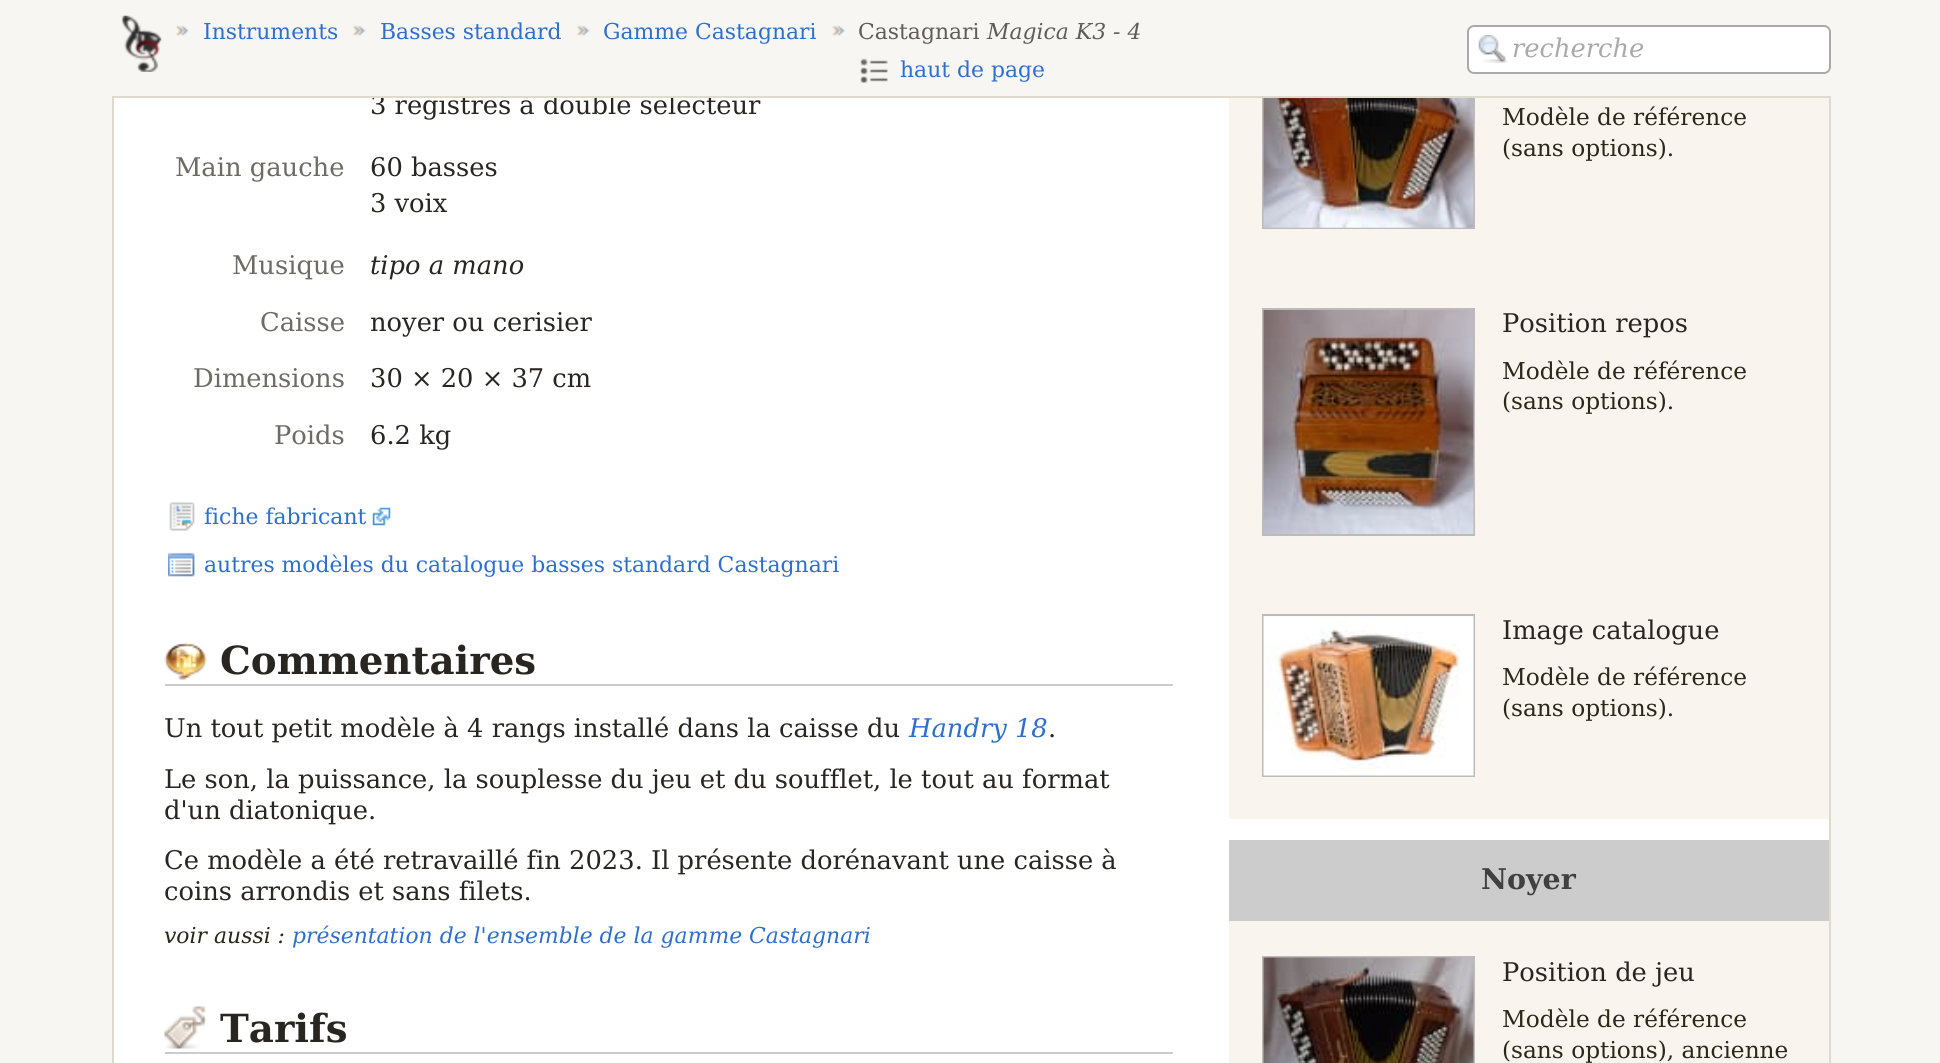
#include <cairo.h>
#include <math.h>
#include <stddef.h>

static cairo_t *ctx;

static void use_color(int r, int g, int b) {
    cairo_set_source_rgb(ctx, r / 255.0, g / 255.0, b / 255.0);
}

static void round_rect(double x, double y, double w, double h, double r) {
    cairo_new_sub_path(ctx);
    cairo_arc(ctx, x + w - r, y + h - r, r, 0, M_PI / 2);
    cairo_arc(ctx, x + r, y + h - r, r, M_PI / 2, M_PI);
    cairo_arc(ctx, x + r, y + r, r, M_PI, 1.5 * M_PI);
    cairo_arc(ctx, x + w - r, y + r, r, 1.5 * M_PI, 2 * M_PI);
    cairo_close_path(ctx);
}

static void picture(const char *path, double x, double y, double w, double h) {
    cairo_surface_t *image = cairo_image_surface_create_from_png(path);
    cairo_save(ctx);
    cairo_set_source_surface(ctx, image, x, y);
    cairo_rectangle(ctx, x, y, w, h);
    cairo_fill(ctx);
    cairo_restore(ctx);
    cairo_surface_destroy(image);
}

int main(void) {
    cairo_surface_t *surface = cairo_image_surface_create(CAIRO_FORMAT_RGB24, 1940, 1063);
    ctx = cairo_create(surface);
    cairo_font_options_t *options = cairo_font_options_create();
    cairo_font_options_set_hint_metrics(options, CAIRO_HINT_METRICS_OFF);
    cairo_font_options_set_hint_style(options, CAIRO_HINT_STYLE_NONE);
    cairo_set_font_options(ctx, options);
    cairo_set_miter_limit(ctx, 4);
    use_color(248, 246, 243);
    cairo_paint(ctx);
    use_color(255, 255, 255);
    cairo_rectangle(ctx, 114, 98, 1715, 965);
    cairo_fill(ctx);
    cairo_rectangle(ctx, 113, -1, 1717, 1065);
    use_color(223, 218, 206);
    cairo_stroke(ctx);
    cairo_select_font_face(ctx, "DejaVu Serif", CAIRO_FONT_SLANT_NORMAL, CAIRO_FONT_WEIGHT_NORMAL);
    cairo_set_font_size(ctx, 25.75);
    use_color(41, 38, 33);
    cairo_move_to(ctx, 370, 114);
    cairo_show_text(ctx, "3 registres à double sélecteur");
    use_color(250, 244, 239);
    cairo_rectangle(ctx, 1229, 98, 600, 721);
    cairo_fill(ctx);
    cairo_rectangle(ctx, 1263, 55, 211, 173);
    use_color(187, 187, 187);
    cairo_stroke(ctx);
    use_color(248, 246, 243);
    cairo_rectangle(ctx, 112, 0, 1719, 96);
    cairo_fill(ctx);
    use_color(223, 218, 206);
    cairo_rectangle(ctx, 112, 96, 1719, 2);
    cairo_fill(ctx);
    picture("img1.png", 176, 25, 14, 11);
    picture("img2.png", 121, 15, 41, 57);
    picture("img3.png", 352, 25, 14, 11);
    cairo_set_font_size(ctx, 21.9);
    use_color(45, 111, 205);
    cairo_move_to(ctx, 203, 39);
    cairo_show_text(ctx, "Instruments");
    picture("img3.png", 576, 25, 14, 11);
    cairo_move_to(ctx, 380, 39);
    cairo_show_text(ctx, "Basses standard");
    picture("img4.png", 832, 25, 14, 11);
    cairo_move_to(ctx, 603, 39);
    cairo_show_text(ctx, "Gamme Castagnari");
    picture("img5.png", 860, 58, 28, 25);
    use_color(96, 92, 87);
    cairo_move_to(ctx, 858, 39);
    cairo_show_text(ctx, "Castagnari");
    cairo_select_font_face(ctx, "DejaVu Serif", CAIRO_FONT_SLANT_ITALIC, CAIRO_FONT_WEIGHT_NORMAL);
    cairo_move_to(ctx, 987, 39);
    cairo_show_text(ctx, "Magica K3 - 4");
    cairo_select_font_face(ctx, "DejaVu Serif", CAIRO_FONT_SLANT_NORMAL, CAIRO_FONT_WEIGHT_NORMAL);
    use_color(45, 111, 205);
    cairo_move_to(ctx, 900, 77);
    cairo_show_text(ctx, "haut de page");
    use_color(255, 255, 255);
    round_rect(1467, 25, 364, 49, 7);
    cairo_fill(ctx);
    picture("img6.png", 1478, 35, 29, 28);
    round_rect(1468, 26, 362, 47, 6);
    use_color(170, 170, 170);
    cairo_stroke(ctx);
    cairo_select_font_face(ctx, "DejaVu Serif", CAIRO_FONT_SLANT_ITALIC, CAIRO_FONT_WEIGHT_NORMAL);
    cairo_set_font_size(ctx, 25.75);
    cairo_move_to(ctx, 1512, 57);
    cairo_show_text(ctx, "recherche");
    cairo_select_font_face(ctx, "DejaVu Serif", CAIRO_FONT_SLANT_NORMAL, CAIRO_FONT_WEIGHT_NORMAL);
    use_color(110, 106, 100);
    cairo_move_to(ctx, 175, 176);
    cairo_show_text(ctx, "Main gauche");
    use_color(41, 38, 33);
    cairo_move_to(ctx, 370, 176);
    cairo_show_text(ctx, "60 basses");
    cairo_move_to(ctx, 370, 212);
    cairo_show_text(ctx, "3 voix");
    use_color(110, 106, 100);
    cairo_move_to(ctx, 232, 274);
    cairo_show_text(ctx, "Musique");
    cairo_select_font_face(ctx, "DejaVu Serif", CAIRO_FONT_SLANT_ITALIC, CAIRO_FONT_WEIGHT_NORMAL);
    use_color(41, 38, 33);
    cairo_move_to(ctx, 370, 274);
    cairo_show_text(ctx, "tipo a mano");
    cairo_select_font_face(ctx, "DejaVu Serif", CAIRO_FONT_SLANT_NORMAL, CAIRO_FONT_WEIGHT_NORMAL);
    use_color(110, 106, 100);
    cairo_move_to(ctx, 260, 331);
    cairo_show_text(ctx, "Caisse");
    use_color(41, 38, 33);
    cairo_move_to(ctx, 370, 331);
    cairo_show_text(ctx, "noyer ou cerisier");
    use_color(110, 106, 100);
    cairo_move_to(ctx, 193, 387);
    cairo_show_text(ctx, "Dimensions");
    use_color(41, 38, 33);
    cairo_move_to(ctx, 370, 387);
    cairo_show_text(ctx, "30 × 20 × 37 cm");
    use_color(110, 106, 100);
    cairo_move_to(ctx, 274, 444);
    cairo_show_text(ctx, "Poids");
    use_color(41, 38, 33);
    cairo_move_to(ctx, 370, 444);
    cairo_show_text(ctx, "6.2 kg");
    picture("img7.png", 169, 502, 26, 29);
    cairo_set_font_size(ctx, 21.9);
    use_color(45, 111, 205);
    cairo_move_to(ctx, 204, 524);
    cairo_show_text(ctx, "fiche fabricant");
    picture("img8.png", 372, 507, 19, 19);
    picture("img9.png", 168, 552, 27, 25);
    cairo_move_to(ctx, 204, 572);
    cairo_show_text(ctx, "autres modèles du catalogue basses standard Castagnari");
    picture("img10.png", 164, 642, 43, 38);
    use_color(204, 204, 204);
    cairo_rectangle(ctx, 165, 684, 1008, 2);
    cairo_fill(ctx);
    cairo_select_font_face(ctx, "DejaVu Serif", CAIRO_FONT_SLANT_NORMAL, CAIRO_FONT_WEIGHT_BOLD);
    cairo_set_font_size(ctx, 38.75);
    use_color(41, 38, 33);
    cairo_move_to(ctx, 220, 674);
    cairo_show_text(ctx, "Commentaires");
    cairo_select_font_face(ctx, "DejaVu Serif", CAIRO_FONT_SLANT_NORMAL, CAIRO_FONT_WEIGHT_NORMAL);
    cairo_set_font_size(ctx, 25.75);
    cairo_move_to(ctx, 164, 737);
    cairo_show_text(ctx, "Un tout petit modèle à 4 rangs installé dans la caisse du");
    cairo_select_font_face(ctx, "DejaVu Serif", CAIRO_FONT_SLANT_ITALIC, CAIRO_FONT_WEIGHT_NORMAL);
    use_color(45, 111, 205);
    cairo_move_to(ctx, 909, 737);
    cairo_show_text(ctx, "Handry 18");
    cairo_select_font_face(ctx, "DejaVu Serif", CAIRO_FONT_SLANT_NORMAL, CAIRO_FONT_WEIGHT_NORMAL);
    use_color(41, 38, 33);
    cairo_move_to(ctx, 1048, 737);
    cairo_show_text(ctx, ".");
    cairo_move_to(ctx, 164, 788);
    cairo_show_text(ctx, "Le son, la puissance, la souplesse du jeu et du soufflet, le tout au format");
    cairo_move_to(ctx, 164, 819);
    cairo_show_text(ctx, "d'un diatonique.");
    cairo_move_to(ctx, 164, 869);
    cairo_show_text(ctx, "Ce modèle a été retravaillé fin 2023. Il présente dorénavant une caisse à");
    cairo_move_to(ctx, 164, 900);
    cairo_show_text(ctx, "coins arrondis et sans filets.");
    cairo_select_font_face(ctx, "DejaVu Serif", CAIRO_FONT_SLANT_ITALIC, CAIRO_FONT_WEIGHT_NORMAL);
    cairo_set_font_size(ctx, 21.9);
    use_color(42, 40, 24);
    cairo_move_to(ctx, 164, 943);
    cairo_show_text(ctx, "voir aussi :");
    use_color(45, 111, 205);
    cairo_move_to(ctx, 292, 943);
    cairo_show_text(ctx, "présentation de l'ensemble de la gamme Castagnari");
    picture("img11.png", 164, 1006, 42, 43);
    use_color(204, 204, 204);
    cairo_rectangle(ctx, 165, 1052, 1008, 2);
    cairo_fill(ctx);
    cairo_select_font_face(ctx, "DejaVu Serif", CAIRO_FONT_SLANT_NORMAL, CAIRO_FONT_WEIGHT_BOLD);
    cairo_set_font_size(ctx, 38.75);
    use_color(41, 38, 33);
    cairo_move_to(ctx, 220, 1042);
    cairo_show_text(ctx, "Tarifs");
    picture("img12.png", 1263, 98, 211, 130);
    cairo_select_font_face(ctx, "DejaVu Serif", CAIRO_FONT_SLANT_NORMAL, CAIRO_FONT_WEIGHT_NORMAL);
    cairo_set_font_size(ctx, 23.25);
    use_color(42, 40, 24);
    cairo_move_to(ctx, 1502, 125);
    cairo_show_text(ctx, "Modèle de référence");
    cairo_move_to(ctx, 1502, 156);
    cairo_show_text(ctx, "(sans options).");
    cairo_rectangle(ctx, 1263, 309, 211, 226);
    use_color(187, 187, 187);
    cairo_stroke(ctx);
    picture("img13.png", 1263, 310, 211, 224);
    cairo_set_font_size(ctx, 25.75);
    use_color(41, 38, 33);
    cairo_move_to(ctx, 1502, 332);
    cairo_show_text(ctx, "Position repos");
    cairo_set_font_size(ctx, 23.25);
    use_color(42, 40, 24);
    cairo_move_to(ctx, 1502, 379);
    cairo_show_text(ctx, "Modèle de référence");
    cairo_move_to(ctx, 1502, 409);
    cairo_show_text(ctx, "(sans options).");
    cairo_rectangle(ctx, 1263, 615, 211, 161);
    use_color(187, 187, 187);
    cairo_stroke(ctx);
    picture("img14.png", 1263, 616, 211, 160);
    cairo_set_font_size(ctx, 25.75);
    use_color(41, 38, 33);
    cairo_move_to(ctx, 1502, 639);
    cairo_show_text(ctx, "Image catalogue");
    cairo_set_font_size(ctx, 23.25);
    use_color(42, 40, 24);
    cairo_move_to(ctx, 1502, 685);
    cairo_show_text(ctx, "Modèle de référence");
    cairo_move_to(ctx, 1502, 716);
    cairo_show_text(ctx, "(sans options).");
    use_color(204, 204, 204);
    cairo_rectangle(ctx, 1229, 840, 600, 81);
    cairo_fill(ctx);
    cairo_select_font_face(ctx, "DejaVu Serif", CAIRO_FONT_SLANT_NORMAL, CAIRO_FONT_WEIGHT_BOLD);
    cairo_set_font_size(ctx, 28.5);
    use_color(64, 64, 64);
    cairo_move_to(ctx, 1481, 889);
    cairo_show_text(ctx, "Noyer");
    use_color(250, 244, 239);
    cairo_rectangle(ctx, 1229, 921, 600, 142);
    cairo_fill(ctx);
    cairo_rectangle(ctx, 1263, 957, 211, 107);
    use_color(187, 187, 187);
    cairo_stroke(ctx);
    picture("img15.png", 1263, 957, 211, 106);
    cairo_select_font_face(ctx, "DejaVu Serif", CAIRO_FONT_SLANT_NORMAL, CAIRO_FONT_WEIGHT_NORMAL);
    cairo_set_font_size(ctx, 25.75);
    use_color(41, 38, 33);
    cairo_move_to(ctx, 1502, 981);
    cairo_show_text(ctx, "Position de jeu");
    cairo_set_font_size(ctx, 23.25);
    use_color(42, 40, 24);
    cairo_move_to(ctx, 1502, 1027);
    cairo_show_text(ctx, "Modèle de référence");
    cairo_move_to(ctx, 1502, 1058);
    cairo_show_text(ctx, "(sans options), ancienne");
    cairo_surface_write_to_png(surface, "result.png");
    cairo_font_options_destroy(options);
    cairo_destroy(ctx);
    cairo_surface_destroy(surface);
    return 0;
}
